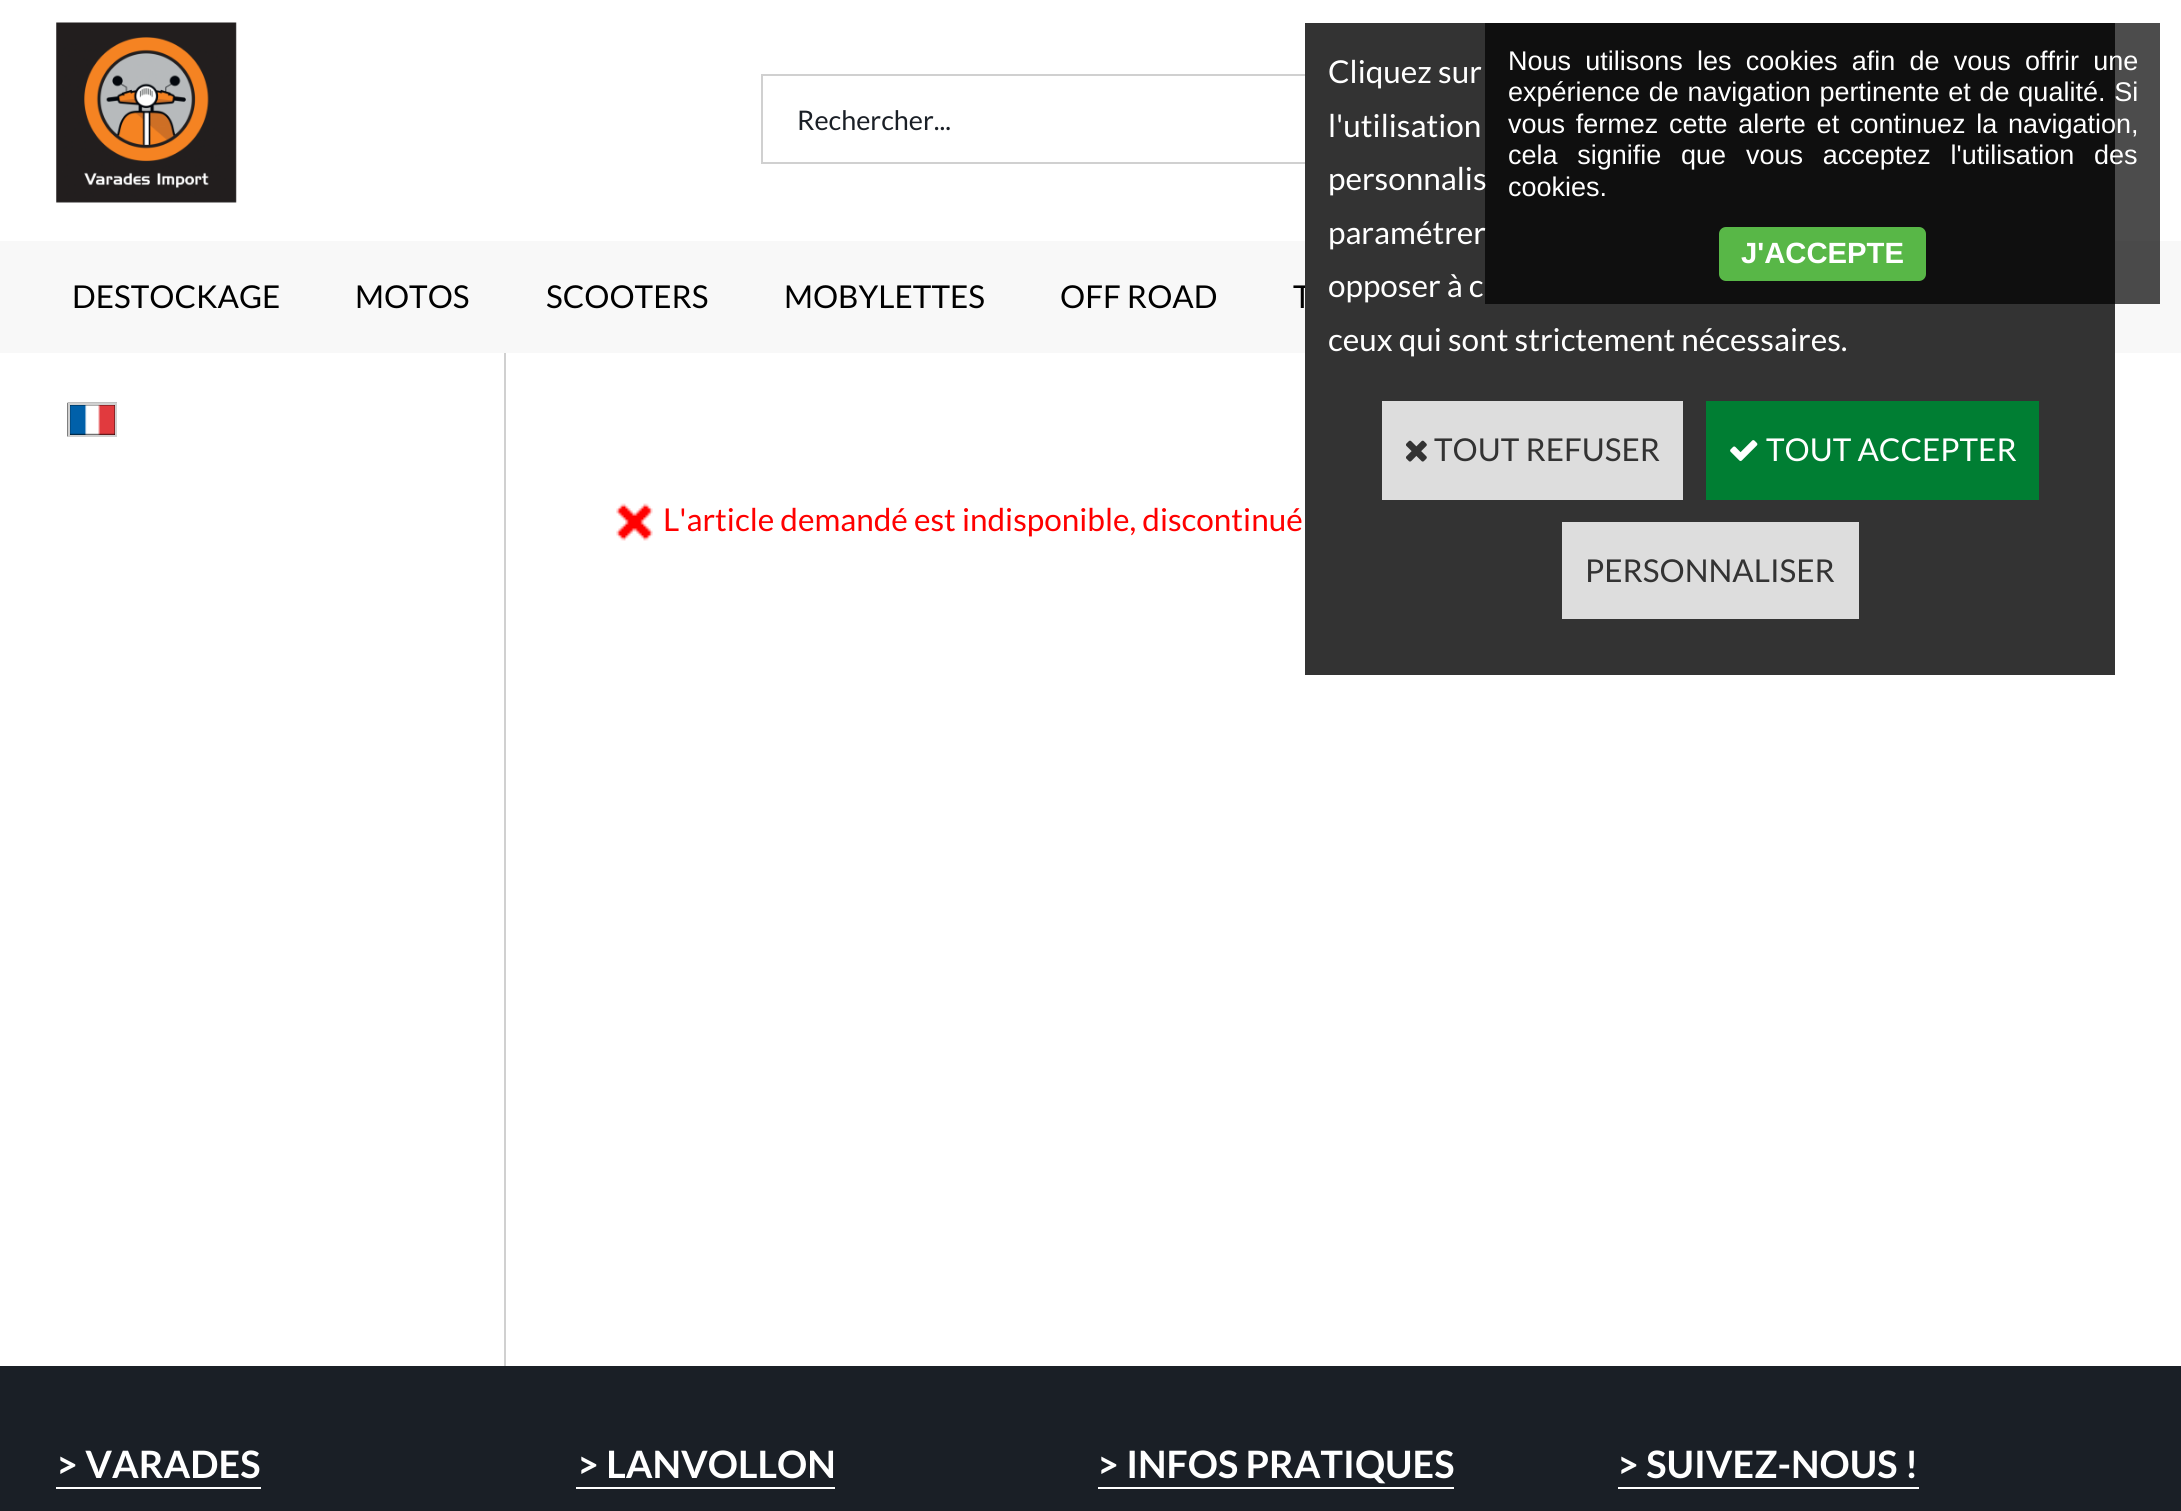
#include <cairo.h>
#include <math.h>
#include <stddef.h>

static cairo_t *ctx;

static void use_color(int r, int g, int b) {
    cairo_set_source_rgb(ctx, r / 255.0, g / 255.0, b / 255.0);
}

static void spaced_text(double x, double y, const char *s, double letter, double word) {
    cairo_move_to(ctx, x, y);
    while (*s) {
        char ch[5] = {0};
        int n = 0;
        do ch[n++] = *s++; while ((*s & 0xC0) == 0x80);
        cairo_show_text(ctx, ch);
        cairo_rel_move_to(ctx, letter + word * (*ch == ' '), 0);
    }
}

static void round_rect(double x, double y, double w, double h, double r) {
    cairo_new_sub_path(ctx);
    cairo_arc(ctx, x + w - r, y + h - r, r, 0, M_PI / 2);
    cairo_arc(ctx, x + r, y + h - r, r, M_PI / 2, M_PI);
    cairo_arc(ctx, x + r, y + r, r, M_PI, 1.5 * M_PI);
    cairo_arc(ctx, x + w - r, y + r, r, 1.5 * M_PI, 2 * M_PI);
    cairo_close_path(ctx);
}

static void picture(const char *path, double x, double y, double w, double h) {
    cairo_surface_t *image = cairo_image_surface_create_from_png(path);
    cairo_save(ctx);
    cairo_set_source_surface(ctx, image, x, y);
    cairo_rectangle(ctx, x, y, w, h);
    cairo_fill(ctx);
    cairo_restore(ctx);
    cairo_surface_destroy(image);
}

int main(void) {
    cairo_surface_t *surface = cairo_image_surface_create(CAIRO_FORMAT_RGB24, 2181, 1511);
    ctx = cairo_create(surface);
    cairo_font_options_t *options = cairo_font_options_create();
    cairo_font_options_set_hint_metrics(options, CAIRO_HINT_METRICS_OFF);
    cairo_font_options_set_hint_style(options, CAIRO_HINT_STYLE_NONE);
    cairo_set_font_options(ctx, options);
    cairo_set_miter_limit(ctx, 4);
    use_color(255, 255, 255);
    cairo_paint(ctx);
    use_color(248, 248, 248);
    cairo_rectangle(ctx, 0, 241, 2181, 112);
    cairo_fill(ctx);
    use_color(208, 208, 208);
    cairo_rectangle(ctx, 761, 74, 546, 2);
    cairo_fill(ctx);
    cairo_rectangle(ctx, 761, 162, 546, 2);
    cairo_fill(ctx);
    cairo_select_font_face(ctx, "Lato", CAIRO_FONT_SLANT_NORMAL, CAIRO_FONT_WEIGHT_NORMAL);
    cairo_set_font_size(ctx, 31.5);
    use_color(0, 0, 0);
    cairo_move_to(ctx, 1293, 308);
    cairo_show_text(ctx, "T");
    use_color(51, 51, 51);
    cairo_rectangle(ctx, 1305, 23, 810, 652);
    cairo_fill(ctx);
    cairo_set_source_rgba(ctx, 0, 0, 0, 0.7);
    cairo_rectangle(ctx, 1485, 23, 675, 281);
    cairo_fill(ctx);
    cairo_select_font_face(ctx, "Liberation Sans", CAIRO_FONT_SLANT_NORMAL, CAIRO_FONT_WEIGHT_NORMAL);
    cairo_set_font_size(ctx, 27);
    use_color(255, 255, 255);
    spaced_text(1508, 70, "Nous utilisons les cookies afin de vous offrir une", 0, 6.75);
    spaced_text(1508, 101, "expérience de navigation pertinente et de qualité. Si", 0, 1.25);
    spaced_text(1508, 133, "vous fermez cette alerte et continuez la navigation,", 0, 3.25);
    spaced_text(1508, 164, "cela signifie que vous acceptez l'utilisation des", 0, 12.25);
    cairo_move_to(ctx, 1508, 196);
    cairo_show_text(ctx, "cookies.");
    use_color(88, 183, 71);
    round_rect(1719, 227, 207, 54, 7);
    cairo_fill(ctx);
    cairo_select_font_face(ctx, "Liberation Sans", CAIRO_FONT_SLANT_NORMAL, CAIRO_FONT_WEIGHT_BOLD);
    cairo_set_font_size(ctx, 29.25);
    use_color(255, 255, 255);
    cairo_move_to(ctx, 1741, 263);
    cairo_show_text(ctx, "J'ACCEPTE");
    picture("img1.png", 56, 22, 181, 181);
    use_color(208, 208, 208);
    cairo_rectangle(ctx, 761, 74, 2, 90);
    cairo_fill(ctx);
    cairo_select_font_face(ctx, "Lato", CAIRO_FONT_SLANT_NORMAL, CAIRO_FONT_WEIGHT_NORMAL);
    cairo_set_font_size(ctx, 27);
    use_color(26, 31, 38);
    cairo_move_to(ctx, 797, 130);
    cairo_show_text(ctx, "Rechercher...");
    cairo_set_font_size(ctx, 31.5);
    use_color(0, 0, 0);
    cairo_move_to(ctx, 72, 308);
    cairo_show_text(ctx, "DESTOCKAGE");
    cairo_move_to(ctx, 355, 308);
    cairo_show_text(ctx, "MOTOS");
    cairo_move_to(ctx, 546, 308);
    cairo_show_text(ctx, "SCOOTERS");
    cairo_move_to(ctx, 784, 308);
    cairo_show_text(ctx, "MOBYLETTES");
    cairo_move_to(ctx, 1060, 308);
    cairo_show_text(ctx, "OFF ROAD");
    use_color(255, 255, 255);
    cairo_move_to(ctx, 1328, 83);
    cairo_show_text(ctx, "Cliquez sur");
    cairo_move_to(ctx, 1328, 137);
    cairo_show_text(ctx, "l'utilisation");
    cairo_move_to(ctx, 1328, 190);
    cairo_show_text(ctx, "personnalis");
    cairo_move_to(ctx, 1328, 244);
    cairo_show_text(ctx, "paramétrer");
    cairo_move_to(ctx, 1328, 297);
    cairo_show_text(ctx, "opposer à c");
    cairo_move_to(ctx, 1328, 351);
    cairo_show_text(ctx, "ceux qui sont strictement nécessaires.");
    use_color(221, 221, 221);
    cairo_rectangle(ctx, 1382, 401, 301, 99);
    cairo_fill(ctx);
    picture("img2.png", 1406, 440, 21, 22);
    use_color(51, 51, 51);
    cairo_move_to(ctx, 1434, 461);
    cairo_show_text(ctx, "TOUT REFUSER");
    use_color(0, 126, 51);
    cairo_rectangle(ctx, 1706, 401, 333, 99);
    cairo_fill(ctx);
    picture("img3.png", 1730, 440, 28, 21);
    use_color(255, 255, 255);
    cairo_move_to(ctx, 1766, 461);
    cairo_show_text(ctx, "TOUT ACCEPTER");
    use_color(221, 221, 221);
    cairo_rectangle(ctx, 1562, 522, 297, 97);
    cairo_fill(ctx);
    use_color(51, 51, 51);
    cairo_move_to(ctx, 1585, 582);
    cairo_show_text(ctx, "PERSONNALISER");
    use_color(208, 208, 208);
    cairo_rectangle(ctx, 504, 353, 2, 1013);
    cairo_fill(ctx);
    picture("img4.png", 67, 402, 50, 35);
    cairo_rectangle(ctx, 69, 404, 47, 32);
    cairo_stroke(ctx);
    picture("img5.png", 616, 503, 37, 38);
    use_color(255, 0, 0);
    cairo_move_to(ctx, 663, 531);
    cairo_show_text(ctx, "L'article demandé est indisponible, discontinué");
    use_color(26, 31, 38);
    cairo_rectangle(ctx, 0, 1366, 2181, 145);
    cairo_fill(ctx);
    cairo_select_font_face(ctx, "Lato", CAIRO_FONT_SLANT_NORMAL, CAIRO_FONT_WEIGHT_BOLD);
    cairo_set_font_size(ctx, 37.75);
    use_color(255, 255, 255);
    cairo_move_to(ctx, 56, 1478);
    cairo_show_text(ctx, "> VARADES");
    cairo_rectangle(ctx, 56, 1487, 205, 2);
    cairo_fill(ctx);
    cairo_move_to(ctx, 577, 1478);
    cairo_show_text(ctx, "> LANVOLLON");
    cairo_rectangle(ctx, 576, 1487, 259, 2);
    cairo_fill(ctx);
    cairo_move_to(ctx, 1097, 1478);
    cairo_show_text(ctx, "> INFOS PRATIQUES");
    cairo_rectangle(ctx, 1098, 1487, 356, 2);
    cairo_fill(ctx);
    cairo_move_to(ctx, 1617, 1478);
    cairo_show_text(ctx, "> SUIVEZ-NOUS !");
    cairo_rectangle(ctx, 1618, 1487, 301, 2);
    cairo_fill(ctx);
    cairo_surface_write_to_png(surface, "result.png");
    cairo_font_options_destroy(options);
    cairo_destroy(ctx);
    cairo_surface_destroy(surface);
    return 0;
}
